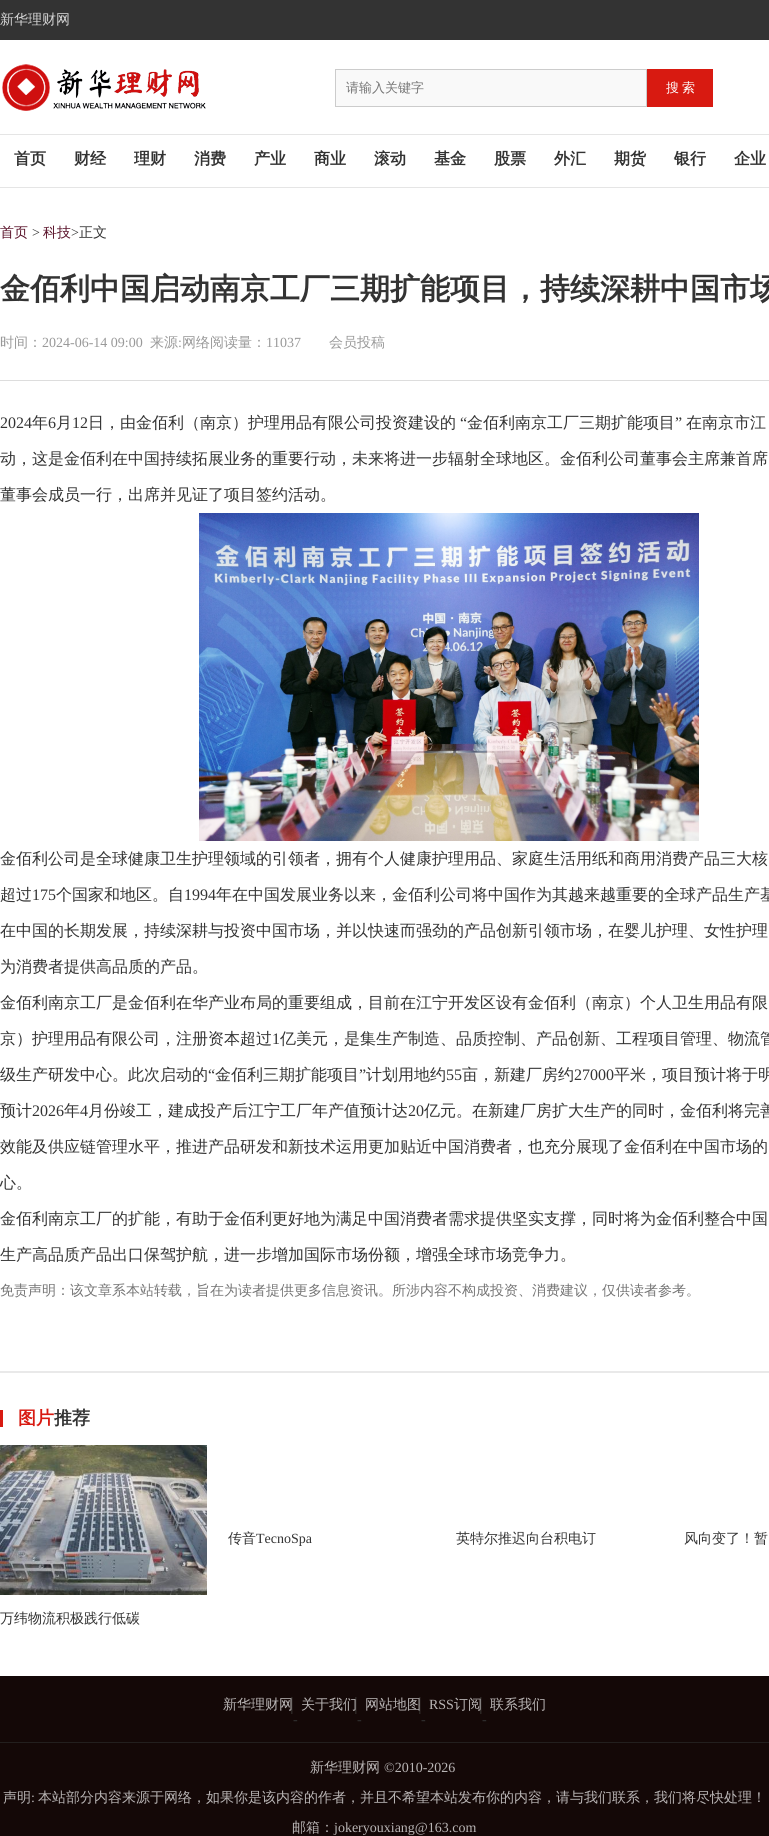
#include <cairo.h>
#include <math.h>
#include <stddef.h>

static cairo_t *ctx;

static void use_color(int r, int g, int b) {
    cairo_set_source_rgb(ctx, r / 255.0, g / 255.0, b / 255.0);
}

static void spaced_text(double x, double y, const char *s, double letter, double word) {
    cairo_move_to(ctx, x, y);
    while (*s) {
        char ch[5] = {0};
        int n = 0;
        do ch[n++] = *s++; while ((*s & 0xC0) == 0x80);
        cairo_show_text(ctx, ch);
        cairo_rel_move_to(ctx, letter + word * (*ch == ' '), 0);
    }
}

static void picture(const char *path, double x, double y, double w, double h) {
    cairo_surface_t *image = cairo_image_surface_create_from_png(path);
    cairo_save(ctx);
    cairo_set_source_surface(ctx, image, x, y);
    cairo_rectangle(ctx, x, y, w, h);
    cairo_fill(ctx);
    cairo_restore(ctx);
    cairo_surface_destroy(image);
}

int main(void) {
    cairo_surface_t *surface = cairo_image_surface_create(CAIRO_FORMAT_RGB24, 769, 1836);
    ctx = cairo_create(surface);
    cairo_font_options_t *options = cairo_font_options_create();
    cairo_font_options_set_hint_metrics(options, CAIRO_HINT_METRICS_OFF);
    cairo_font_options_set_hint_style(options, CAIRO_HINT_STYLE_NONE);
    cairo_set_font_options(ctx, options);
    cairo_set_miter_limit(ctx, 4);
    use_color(255, 255, 255);
    cairo_paint(ctx);
    use_color(51, 51, 51);
    cairo_rectangle(ctx, 0, 0, 769, 40);
    cairo_fill(ctx);
    cairo_select_font_face(ctx, "WenQuanYi Zen Hei Medium", CAIRO_FONT_SLANT_NORMAL, CAIRO_FONT_WEIGHT_NORMAL);
    cairo_set_font_size(ctx, 14);
    use_color(214, 214, 214);
    cairo_move_to(ctx, 0, 24);
    cairo_show_text(ctx, "新华理财网");
    picture("img1.png", 2, 64, 204, 47);
    use_color(249, 249, 249);
    cairo_rectangle(ctx, 335.5, 69.5, 311, 37);
    cairo_fill_preserve(ctx);
    use_color(204, 204, 204);
    cairo_set_line_width(ctx, 1);
    cairo_stroke(ctx);
    cairo_set_font_size(ctx, 13);
    use_color(117, 117, 117);
    cairo_move_to(ctx, 346, 92);
    cairo_show_text(ctx, "请输入关键字");
    use_color(216, 26, 17);
    cairo_rectangle(ctx, 647, 69, 66, 38);
    cairo_fill(ctx);
    use_color(255, 255, 255);
    spaced_text(666, 92, "搜 索", 0, -1);
    use_color(229, 229, 229);
    cairo_rectangle(ctx, 0, 134, 769, 1);
    cairo_fill(ctx);
    cairo_rectangle(ctx, 0, 187, 769, 1);
    cairo_fill(ctx);
    cairo_select_font_face(ctx, "WenQuanYi Zen Hei", CAIRO_FONT_SLANT_NORMAL, CAIRO_FONT_WEIGHT_BOLD);
    cairo_set_font_size(ctx, 16);
    use_color(51, 51, 51);
    cairo_move_to(ctx, 14, 164);
    cairo_show_text(ctx, "首页");
    cairo_move_to(ctx, 74, 164);
    cairo_show_text(ctx, "财经");
    cairo_move_to(ctx, 134, 164);
    cairo_show_text(ctx, "理财");
    cairo_move_to(ctx, 194, 164);
    cairo_show_text(ctx, "消费");
    cairo_move_to(ctx, 254, 164);
    cairo_show_text(ctx, "产业");
    cairo_move_to(ctx, 314, 164);
    cairo_show_text(ctx, "商业");
    cairo_move_to(ctx, 374, 164);
    cairo_show_text(ctx, "滚动");
    cairo_move_to(ctx, 434, 164);
    cairo_show_text(ctx, "基金");
    cairo_move_to(ctx, 494, 164);
    cairo_show_text(ctx, "股票");
    cairo_move_to(ctx, 554, 164);
    cairo_show_text(ctx, "外汇");
    cairo_move_to(ctx, 614, 164);
    cairo_show_text(ctx, "期货");
    cairo_move_to(ctx, 674, 164);
    cairo_show_text(ctx, "银行");
    cairo_move_to(ctx, 734, 164);
    cairo_show_text(ctx, "企业");
    cairo_select_font_face(ctx, "WenQuanYi Zen Hei Medium", CAIRO_FONT_SLANT_NORMAL, CAIRO_FONT_WEIGHT_NORMAL);
    cairo_set_font_size(ctx, 14);
    use_color(90, 19, 42);
    cairo_move_to(ctx, 0, 237);
    cairo_show_text(ctx, "首页");
    cairo_select_font_face(ctx, "Liberation Serif", CAIRO_FONT_SLANT_NORMAL, CAIRO_FONT_WEIGHT_NORMAL);
    use_color(51, 51, 51);
    cairo_move_to(ctx, 32, 237);
    cairo_show_text(ctx, ">");
    cairo_select_font_face(ctx, "WenQuanYi Zen Hei Medium", CAIRO_FONT_SLANT_NORMAL, CAIRO_FONT_WEIGHT_NORMAL);
    use_color(90, 19, 42);
    cairo_move_to(ctx, 43, 237);
    cairo_show_text(ctx, "科技");
    cairo_select_font_face(ctx, "Liberation Serif", CAIRO_FONT_SLANT_NORMAL, CAIRO_FONT_WEIGHT_NORMAL);
    use_color(51, 51, 51);
    cairo_move_to(ctx, 71, 237);
    cairo_show_text(ctx, ">");
    cairo_select_font_face(ctx, "WenQuanYi Zen Hei Medium", CAIRO_FONT_SLANT_NORMAL, CAIRO_FONT_WEIGHT_NORMAL);
    cairo_move_to(ctx, 79, 237);
    cairo_show_text(ctx, "正文");
    cairo_select_font_face(ctx, "WenQuanYi Zen Hei", CAIRO_FONT_SLANT_NORMAL, CAIRO_FONT_WEIGHT_BOLD);
    cairo_set_font_size(ctx, 30);
    cairo_move_to(ctx, 0, 299);
    cairo_show_text(ctx, "金佰利中国启动南京工厂三期扩能项目，持续深耕中国市场");
    use_color(221, 221, 221);
    cairo_rectangle(ctx, 0, 380, 769, 1);
    cairo_fill(ctx);
    cairo_select_font_face(ctx, "WenQuanYi Zen Hei Medium", CAIRO_FONT_SLANT_NORMAL, CAIRO_FONT_WEIGHT_NORMAL);
    cairo_set_font_size(ctx, 14);
    use_color(153, 153, 153);
    cairo_move_to(ctx, 0, 347);
    cairo_show_text(ctx, "时间：");
    cairo_select_font_face(ctx, "Liberation Serif", CAIRO_FONT_SLANT_NORMAL, CAIRO_FONT_WEIGHT_NORMAL);
    cairo_move_to(ctx, 42, 347);
    cairo_show_text(ctx, "2024-06-14 09:00");
    cairo_select_font_face(ctx, "WenQuanYi Zen Hei Medium", CAIRO_FONT_SLANT_NORMAL, CAIRO_FONT_WEIGHT_NORMAL);
    cairo_move_to(ctx, 150, 347);
    cairo_show_text(ctx, "来源");
    cairo_select_font_face(ctx, "Liberation Serif", CAIRO_FONT_SLANT_NORMAL, CAIRO_FONT_WEIGHT_NORMAL);
    cairo_move_to(ctx, 178, 347);
    cairo_show_text(ctx, ":");
    cairo_select_font_face(ctx, "WenQuanYi Zen Hei Medium", CAIRO_FONT_SLANT_NORMAL, CAIRO_FONT_WEIGHT_NORMAL);
    cairo_move_to(ctx, 182, 347);
    cairo_show_text(ctx, "网络阅读量：");
    cairo_select_font_face(ctx, "Liberation Serif", CAIRO_FONT_SLANT_NORMAL, CAIRO_FONT_WEIGHT_NORMAL);
    cairo_move_to(ctx, 266, 347);
    cairo_show_text(ctx, "11037");
    cairo_select_font_face(ctx, "WenQuanYi Zen Hei Medium", CAIRO_FONT_SLANT_NORMAL, CAIRO_FONT_WEIGHT_NORMAL);
    cairo_move_to(ctx, 329, 347);
    cairo_show_text(ctx, "会员投稿");
    cairo_select_font_face(ctx, "Liberation Serif", CAIRO_FONT_SLANT_NORMAL, CAIRO_FONT_WEIGHT_NORMAL);
    cairo_set_font_size(ctx, 16);
    use_color(51, 51, 51);
    cairo_move_to(ctx, 0, 428);
    cairo_show_text(ctx, "2024");
    cairo_select_font_face(ctx, "WenQuanYi Zen Hei Medium", CAIRO_FONT_SLANT_NORMAL, CAIRO_FONT_WEIGHT_NORMAL);
    cairo_move_to(ctx, 32, 428);
    cairo_show_text(ctx, "年");
    cairo_select_font_face(ctx, "Liberation Serif", CAIRO_FONT_SLANT_NORMAL, CAIRO_FONT_WEIGHT_NORMAL);
    cairo_move_to(ctx, 48, 428);
    cairo_show_text(ctx, "6");
    cairo_select_font_face(ctx, "WenQuanYi Zen Hei Medium", CAIRO_FONT_SLANT_NORMAL, CAIRO_FONT_WEIGHT_NORMAL);
    cairo_move_to(ctx, 56, 428);
    cairo_show_text(ctx, "月");
    cairo_select_font_face(ctx, "Liberation Serif", CAIRO_FONT_SLANT_NORMAL, CAIRO_FONT_WEIGHT_NORMAL);
    cairo_move_to(ctx, 72, 428);
    cairo_show_text(ctx, "12");
    cairo_select_font_face(ctx, "WenQuanYi Zen Hei Medium", CAIRO_FONT_SLANT_NORMAL, CAIRO_FONT_WEIGHT_NORMAL);
    cairo_move_to(ctx, 88, 428);
    cairo_show_text(ctx, "日，由金佰利（南京）护理用品有限公司投资建设的");
    cairo_select_font_face(ctx, "Liberation Serif", CAIRO_FONT_SLANT_NORMAL, CAIRO_FONT_WEIGHT_NORMAL);
    cairo_move_to(ctx, 460, 428);
    cairo_show_text(ctx, "“");
    cairo_select_font_face(ctx, "WenQuanYi Zen Hei Medium", CAIRO_FONT_SLANT_NORMAL, CAIRO_FONT_WEIGHT_NORMAL);
    cairo_move_to(ctx, 467, 428);
    cairo_show_text(ctx, "金佰利南京工厂三期扩能项目");
    cairo_select_font_face(ctx, "Liberation Serif", CAIRO_FONT_SLANT_NORMAL, CAIRO_FONT_WEIGHT_NORMAL);
    cairo_move_to(ctx, 675, 428);
    cairo_show_text(ctx, "”");
    cairo_select_font_face(ctx, "WenQuanYi Zen Hei Medium", CAIRO_FONT_SLANT_NORMAL, CAIRO_FONT_WEIGHT_NORMAL);
    cairo_move_to(ctx, 686, 428);
    cairo_show_text(ctx, "在南京市江");
    cairo_move_to(ctx, 0, 464);
    cairo_show_text(ctx, "动，这是金佰利在中国持续拓展业务的重要行动，未来将进一步辐射全球地区。金佰利公司董事会主席兼首席");
    cairo_move_to(ctx, 0, 500);
    cairo_show_text(ctx, "董事会成员一行，出席并见证了项目签约活动。");
    picture("img2.png", 199, 513, 500, 328);
    cairo_move_to(ctx, 0, 864);
    cairo_show_text(ctx, "金佰利公司是全球健康卫生护理领域的引领者，拥有个人健康护理用品、家庭生活用纸和商用消费产品三大核");
    cairo_move_to(ctx, 0, 900);
    cairo_show_text(ctx, "超过");
    cairo_select_font_face(ctx, "Liberation Serif", CAIRO_FONT_SLANT_NORMAL, CAIRO_FONT_WEIGHT_NORMAL);
    cairo_move_to(ctx, 32, 900);
    cairo_show_text(ctx, "175");
    cairo_select_font_face(ctx, "WenQuanYi Zen Hei Medium", CAIRO_FONT_SLANT_NORMAL, CAIRO_FONT_WEIGHT_NORMAL);
    cairo_move_to(ctx, 56, 900);
    cairo_show_text(ctx, "个国家和地区。自");
    cairo_select_font_face(ctx, "Liberation Serif", CAIRO_FONT_SLANT_NORMAL, CAIRO_FONT_WEIGHT_NORMAL);
    cairo_move_to(ctx, 184, 900);
    cairo_show_text(ctx, "1994");
    cairo_select_font_face(ctx, "WenQuanYi Zen Hei Medium", CAIRO_FONT_SLANT_NORMAL, CAIRO_FONT_WEIGHT_NORMAL);
    cairo_move_to(ctx, 216, 900);
    cairo_show_text(ctx, "年在中国发展业务以来，金佰利公司将中国作为其越来越重要的全球产品生产基");
    cairo_move_to(ctx, 0, 936);
    cairo_show_text(ctx, "在中国的长期发展，持续深耕与投资中国市场，并以快速而强劲的产品创新引领市场，在婴儿护理、女性护理");
    cairo_move_to(ctx, 0, 972);
    cairo_show_text(ctx, "为消费者提供高品质的产品。");
    cairo_move_to(ctx, 0, 1008);
    cairo_show_text(ctx, "金佰利南京工厂是金佰利在华产业布局的重要组成，目前在江宁开发区设有金佰利（南京）个人卫生用品有限");
    cairo_move_to(ctx, 0, 1044);
    cairo_show_text(ctx, "京）护理用品有限公司，注册资本超过");
    cairo_select_font_face(ctx, "Liberation Serif", CAIRO_FONT_SLANT_NORMAL, CAIRO_FONT_WEIGHT_NORMAL);
    cairo_move_to(ctx, 272, 1044);
    cairo_show_text(ctx, "1");
    cairo_select_font_face(ctx, "WenQuanYi Zen Hei Medium", CAIRO_FONT_SLANT_NORMAL, CAIRO_FONT_WEIGHT_NORMAL);
    cairo_move_to(ctx, 280, 1044);
    cairo_show_text(ctx, "亿美元，是集生产制造、品质控制、产品创新、工程项目管理、物流管");
    cairo_move_to(ctx, 0, 1080);
    cairo_show_text(ctx, "级生产研发中心。此次启动的");
    cairo_select_font_face(ctx, "Liberation Serif", CAIRO_FONT_SLANT_NORMAL, CAIRO_FONT_WEIGHT_NORMAL);
    cairo_move_to(ctx, 208, 1080);
    cairo_show_text(ctx, "“");
    cairo_select_font_face(ctx, "WenQuanYi Zen Hei Medium", CAIRO_FONT_SLANT_NORMAL, CAIRO_FONT_WEIGHT_NORMAL);
    cairo_move_to(ctx, 215, 1080);
    cairo_show_text(ctx, "金佰利三期扩能项目");
    cairo_select_font_face(ctx, "Liberation Serif", CAIRO_FONT_SLANT_NORMAL, CAIRO_FONT_WEIGHT_NORMAL);
    cairo_move_to(ctx, 359, 1080);
    cairo_show_text(ctx, "”");
    cairo_select_font_face(ctx, "WenQuanYi Zen Hei Medium", CAIRO_FONT_SLANT_NORMAL, CAIRO_FONT_WEIGHT_NORMAL);
    cairo_move_to(ctx, 366, 1080);
    cairo_show_text(ctx, "计划用地约");
    cairo_select_font_face(ctx, "Liberation Serif", CAIRO_FONT_SLANT_NORMAL, CAIRO_FONT_WEIGHT_NORMAL);
    cairo_move_to(ctx, 446, 1080);
    cairo_show_text(ctx, "55");
    cairo_select_font_face(ctx, "WenQuanYi Zen Hei Medium", CAIRO_FONT_SLANT_NORMAL, CAIRO_FONT_WEIGHT_NORMAL);
    cairo_move_to(ctx, 462, 1080);
    cairo_show_text(ctx, "亩，新建厂房约");
    cairo_select_font_face(ctx, "Liberation Serif", CAIRO_FONT_SLANT_NORMAL, CAIRO_FONT_WEIGHT_NORMAL);
    cairo_move_to(ctx, 574, 1080);
    cairo_show_text(ctx, "27000");
    cairo_select_font_face(ctx, "WenQuanYi Zen Hei Medium", CAIRO_FONT_SLANT_NORMAL, CAIRO_FONT_WEIGHT_NORMAL);
    cairo_move_to(ctx, 614, 1080);
    cairo_show_text(ctx, "平米，项目预计将于明");
    cairo_move_to(ctx, 0, 1116);
    cairo_show_text(ctx, "预计");
    cairo_select_font_face(ctx, "Liberation Serif", CAIRO_FONT_SLANT_NORMAL, CAIRO_FONT_WEIGHT_NORMAL);
    cairo_move_to(ctx, 32, 1116);
    cairo_show_text(ctx, "2026");
    cairo_select_font_face(ctx, "WenQuanYi Zen Hei Medium", CAIRO_FONT_SLANT_NORMAL, CAIRO_FONT_WEIGHT_NORMAL);
    cairo_move_to(ctx, 64, 1116);
    cairo_show_text(ctx, "年");
    cairo_select_font_face(ctx, "Liberation Serif", CAIRO_FONT_SLANT_NORMAL, CAIRO_FONT_WEIGHT_NORMAL);
    cairo_move_to(ctx, 80, 1116);
    cairo_show_text(ctx, "4");
    cairo_select_font_face(ctx, "WenQuanYi Zen Hei Medium", CAIRO_FONT_SLANT_NORMAL, CAIRO_FONT_WEIGHT_NORMAL);
    cairo_move_to(ctx, 88, 1116);
    cairo_show_text(ctx, "月份竣工，建成投产后江宁工厂年产值预计达");
    cairo_select_font_face(ctx, "Liberation Serif", CAIRO_FONT_SLANT_NORMAL, CAIRO_FONT_WEIGHT_NORMAL);
    cairo_move_to(ctx, 408, 1116);
    cairo_show_text(ctx, "20");
    cairo_select_font_face(ctx, "WenQuanYi Zen Hei Medium", CAIRO_FONT_SLANT_NORMAL, CAIRO_FONT_WEIGHT_NORMAL);
    cairo_move_to(ctx, 424, 1116);
    cairo_show_text(ctx, "亿元。在新建厂房扩大生产的同时，金佰利将完善");
    cairo_move_to(ctx, 0, 1152);
    cairo_show_text(ctx, "效能及供应链管理水平，推进产品研发和新技术运用更加贴近中国消费者，也充分展现了金佰利在中国市场的");
    cairo_move_to(ctx, 0, 1188);
    cairo_show_text(ctx, "心。");
    cairo_move_to(ctx, 0, 1224);
    cairo_show_text(ctx, "金佰利南京工厂的扩能，有助于金佰利更好地为满足中国消费者需求提供坚实支撑，同时将为金佰利整合中国");
    cairo_move_to(ctx, 0, 1260);
    cairo_show_text(ctx, "生产高品质产品出口保驾护航，进一步增加国际市场份额，增强全球市场竞争力。");
    cairo_set_font_size(ctx, 14);
    use_color(117, 117, 117);
    cairo_move_to(ctx, 0, 1295);
    cairo_show_text(ctx, "免责声明：该文章系本站转载，旨在为读者提供更多信息资讯。所涉内容不构成投资、消费建议，仅供读者参考。");
    use_color(233, 233, 233);
    cairo_rectangle(ctx, 0, 1371, 769, 2);
    cairo_fill(ctx);
    use_color(216, 26, 17);
    cairo_rectangle(ctx, 0, 1410, 3, 17);
    cairo_fill(ctx);
    cairo_select_font_face(ctx, "WenQuanYi Zen Hei", CAIRO_FONT_SLANT_NORMAL, CAIRO_FONT_WEIGHT_BOLD);
    cairo_set_font_size(ctx, 18);
    cairo_move_to(ctx, 18, 1424);
    cairo_show_text(ctx, "图片");
    use_color(51, 51, 51);
    cairo_move_to(ctx, 54, 1424);
    cairo_show_text(ctx, "推荐");
    cairo_select_font_face(ctx, "WenQuanYi Zen Hei Medium", CAIRO_FONT_SLANT_NORMAL, CAIRO_FONT_WEIGHT_NORMAL);
    cairo_set_font_size(ctx, 14);
    cairo_move_to(ctx, 228, 1543);
    cairo_show_text(ctx, "传音");
    cairo_select_font_face(ctx, "Liberation Serif", CAIRO_FONT_SLANT_NORMAL, CAIRO_FONT_WEIGHT_NORMAL);
    cairo_move_to(ctx, 256, 1543);
    cairo_show_text(ctx, "TecnoSpa");
    cairo_select_font_face(ctx, "WenQuanYi Zen Hei Medium", CAIRO_FONT_SLANT_NORMAL, CAIRO_FONT_WEIGHT_NORMAL);
    cairo_move_to(ctx, 456, 1543);
    cairo_show_text(ctx, "英特尔推迟向台积电订");
    cairo_move_to(ctx, 684, 1543);
    cairo_show_text(ctx, "风向变了！暂");
    picture("img3.png", 0, 1445, 207, 150);
    cairo_move_to(ctx, 0, 1623);
    cairo_show_text(ctx, "万纬物流积极践行低碳");
    use_color(20, 8, 7);
    cairo_rectangle(ctx, 0, 1676, 769, 160);
    cairo_fill(ctx);
    use_color(35, 31, 30);
    cairo_rectangle(ctx, 0, 1742, 769, 1);
    cairo_fill(ctx);
    picture("img4.png", 291, 1697, 2, 17);
    use_color(185, 181, 181);
    cairo_move_to(ctx, 223, 1709);
    cairo_show_text(ctx, "新华理财网");
    picture("img4.png", 355, 1697, 2, 17);
    cairo_move_to(ctx, 301, 1709);
    cairo_show_text(ctx, "关于我们");
    picture("img4.png", 419, 1697, 2, 17);
    cairo_move_to(ctx, 365, 1709);
    cairo_show_text(ctx, "网站地图");
    picture("img4.png", 480, 1697, 2, 17);
    cairo_select_font_face(ctx, "Liberation Serif", CAIRO_FONT_SLANT_NORMAL, CAIRO_FONT_WEIGHT_NORMAL);
    cairo_move_to(ctx, 429, 1709);
    cairo_show_text(ctx, "RSS");
    cairo_select_font_face(ctx, "WenQuanYi Zen Hei Medium", CAIRO_FONT_SLANT_NORMAL, CAIRO_FONT_WEIGHT_NORMAL);
    cairo_move_to(ctx, 454, 1709);
    cairo_show_text(ctx, "订阅");
    cairo_move_to(ctx, 490, 1709);
    cairo_show_text(ctx, "联系我们");
    cairo_select_font_face(ctx, "Liberation Serif", CAIRO_FONT_SLANT_NORMAL, CAIRO_FONT_WEIGHT_NORMAL);
    use_color(51, 51, 51);
    cairo_move_to(ctx, 293, 1724);
    cairo_show_text(ctx, "-");
    cairo_move_to(ctx, 357, 1724);
    cairo_show_text(ctx, "-");
    cairo_move_to(ctx, 421, 1724);
    cairo_show_text(ctx, "-");
    cairo_move_to(ctx, 482, 1724);
    cairo_show_text(ctx, "-");
    cairo_select_font_face(ctx, "WenQuanYi Zen Hei Medium", CAIRO_FONT_SLANT_NORMAL, CAIRO_FONT_WEIGHT_NORMAL);
    use_color(185, 181, 181);
    cairo_move_to(ctx, 310, 1772);
    cairo_show_text(ctx, "新华理财网");
    cairo_select_font_face(ctx, "Liberation Serif", CAIRO_FONT_SLANT_NORMAL, CAIRO_FONT_WEIGHT_NORMAL);
    cairo_move_to(ctx, 384, 1772);
    cairo_show_text(ctx, "©2010-2026");
    cairo_select_font_face(ctx, "WenQuanYi Zen Hei Medium", CAIRO_FONT_SLANT_NORMAL, CAIRO_FONT_WEIGHT_NORMAL);
    cairo_move_to(ctx, 3, 1802);
    cairo_show_text(ctx, "声明");
    cairo_select_font_face(ctx, "Liberation Serif", CAIRO_FONT_SLANT_NORMAL, CAIRO_FONT_WEIGHT_NORMAL);
    cairo_move_to(ctx, 31, 1802);
    cairo_show_text(ctx, ":");
    cairo_select_font_face(ctx, "WenQuanYi Zen Hei Medium", CAIRO_FONT_SLANT_NORMAL, CAIRO_FONT_WEIGHT_NORMAL);
    cairo_move_to(ctx, 38, 1802);
    cairo_show_text(ctx, "本站部分内容来源于网络，如果你是该内容的作者，并且不希望本站发布你的内容，请与我们联系，我们将尽快处理！");
    cairo_move_to(ctx, 292, 1832);
    cairo_show_text(ctx, "邮箱：");
    cairo_select_font_face(ctx, "Liberation Serif", CAIRO_FONT_SLANT_NORMAL, CAIRO_FONT_WEIGHT_NORMAL);
    cairo_move_to(ctx, 334, 1832);
    cairo_show_text(ctx, "jokeryouxiang@163.com");
    cairo_surface_write_to_png(surface, "result.png");
    cairo_font_options_destroy(options);
    cairo_destroy(ctx);
    cairo_surface_destroy(surface);
    return 0;
}
